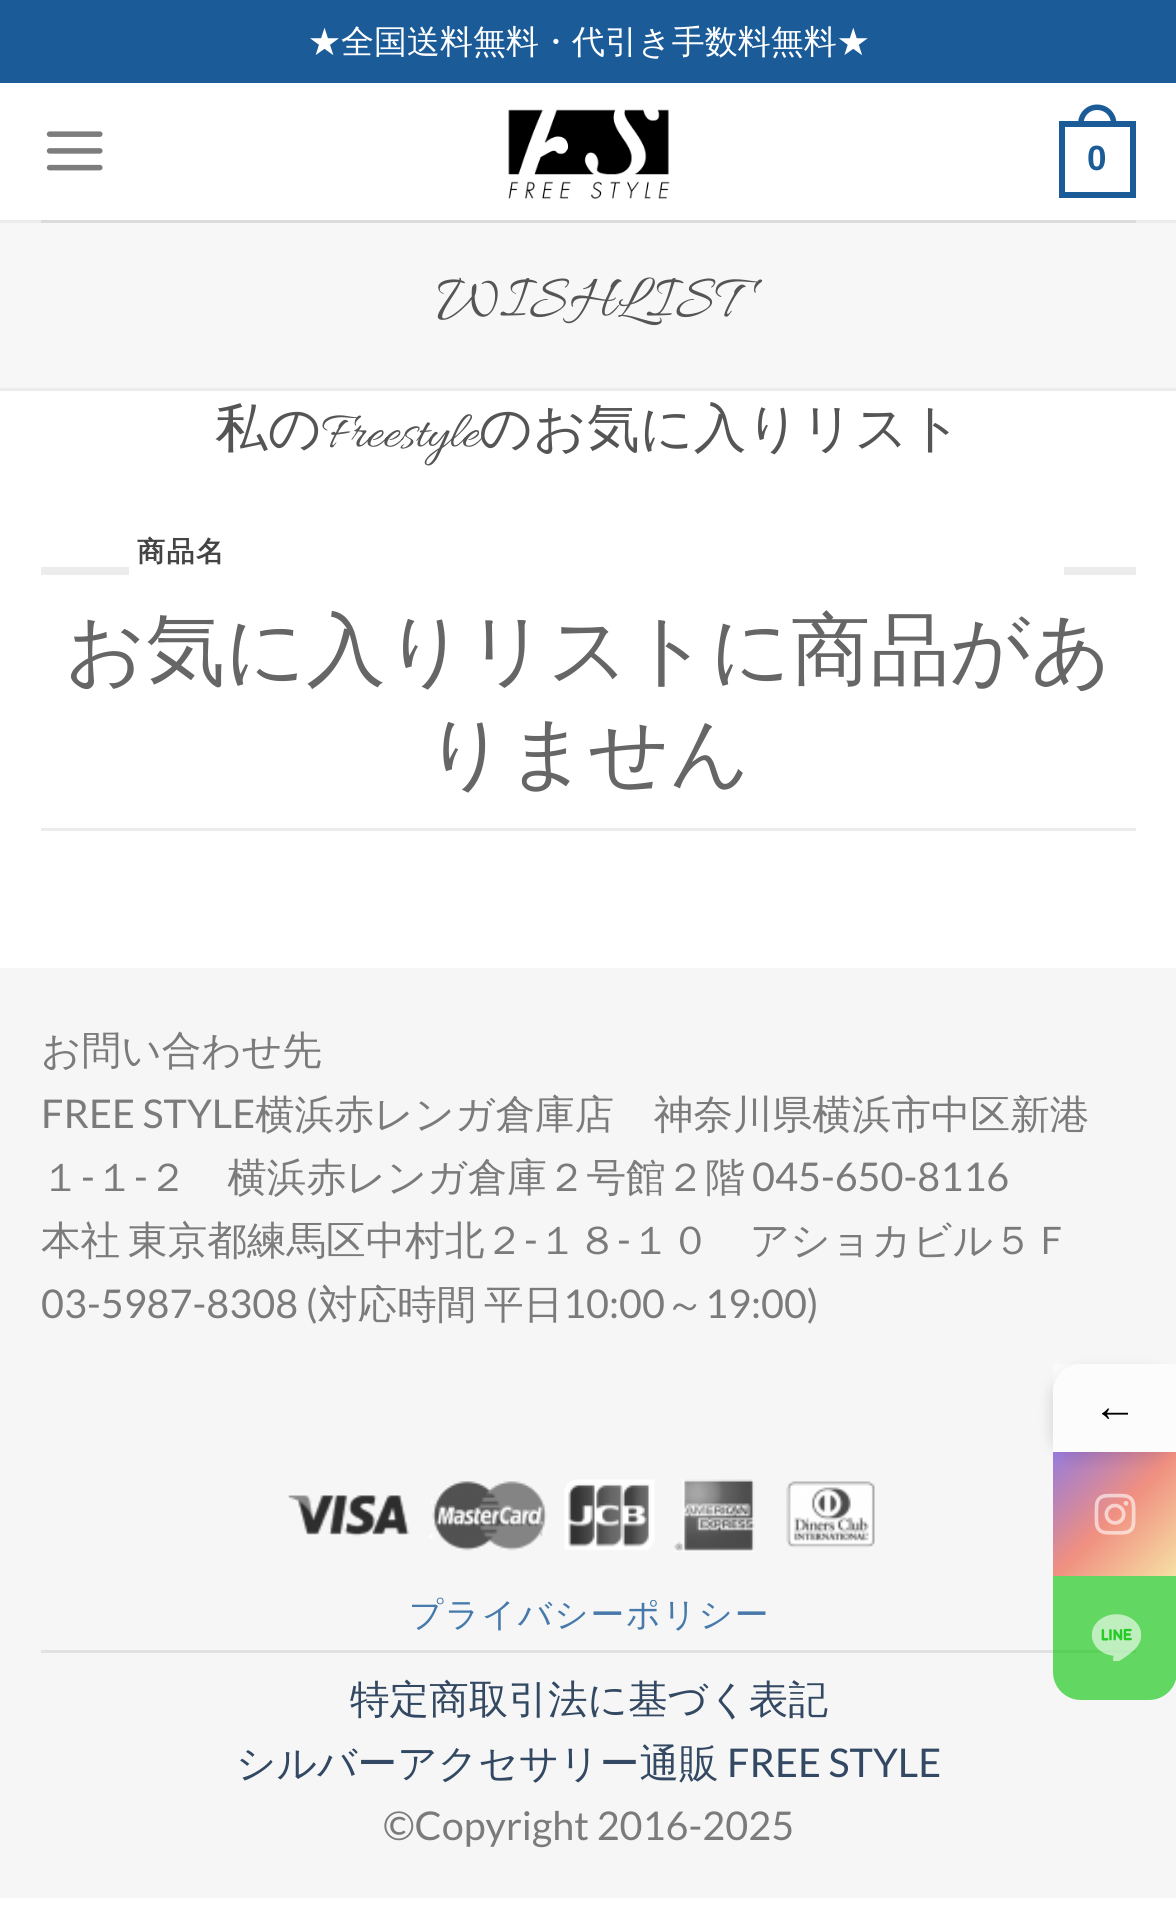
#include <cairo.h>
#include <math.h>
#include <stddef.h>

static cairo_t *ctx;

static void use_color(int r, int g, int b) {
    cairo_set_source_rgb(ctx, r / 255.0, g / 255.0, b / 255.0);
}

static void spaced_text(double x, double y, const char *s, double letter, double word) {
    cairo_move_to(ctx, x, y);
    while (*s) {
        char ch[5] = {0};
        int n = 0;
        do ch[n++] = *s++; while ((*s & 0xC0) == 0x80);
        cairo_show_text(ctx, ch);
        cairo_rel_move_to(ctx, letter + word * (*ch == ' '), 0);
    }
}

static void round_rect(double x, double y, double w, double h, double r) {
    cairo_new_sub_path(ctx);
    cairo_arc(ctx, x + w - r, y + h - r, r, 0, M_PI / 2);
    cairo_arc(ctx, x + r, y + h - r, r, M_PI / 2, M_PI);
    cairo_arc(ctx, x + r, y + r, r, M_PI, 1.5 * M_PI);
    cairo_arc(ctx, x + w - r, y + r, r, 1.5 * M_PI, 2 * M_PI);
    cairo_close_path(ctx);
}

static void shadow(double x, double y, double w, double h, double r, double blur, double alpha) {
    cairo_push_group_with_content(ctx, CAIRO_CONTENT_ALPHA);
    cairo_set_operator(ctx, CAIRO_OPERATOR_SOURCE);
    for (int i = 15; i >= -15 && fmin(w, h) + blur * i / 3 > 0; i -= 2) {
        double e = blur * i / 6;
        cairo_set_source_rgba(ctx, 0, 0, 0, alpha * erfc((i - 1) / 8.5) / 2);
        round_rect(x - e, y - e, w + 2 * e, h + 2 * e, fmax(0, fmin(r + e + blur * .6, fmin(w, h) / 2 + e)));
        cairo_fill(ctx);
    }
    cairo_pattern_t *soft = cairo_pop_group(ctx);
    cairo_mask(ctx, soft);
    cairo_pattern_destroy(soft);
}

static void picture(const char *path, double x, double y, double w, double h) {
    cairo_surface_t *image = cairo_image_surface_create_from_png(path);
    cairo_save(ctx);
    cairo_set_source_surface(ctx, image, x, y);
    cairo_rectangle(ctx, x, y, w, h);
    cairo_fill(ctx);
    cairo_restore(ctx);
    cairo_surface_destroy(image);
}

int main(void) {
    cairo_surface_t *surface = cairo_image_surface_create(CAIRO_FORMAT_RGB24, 1176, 1913);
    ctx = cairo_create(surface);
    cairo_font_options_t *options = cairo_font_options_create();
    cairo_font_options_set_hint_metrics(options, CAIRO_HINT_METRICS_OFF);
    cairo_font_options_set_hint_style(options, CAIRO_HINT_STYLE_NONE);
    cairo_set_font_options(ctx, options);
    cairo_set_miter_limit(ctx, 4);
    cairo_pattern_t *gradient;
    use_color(255, 255, 255);
    cairo_paint(ctx);
    use_color(27, 91, 152);
    cairo_rectangle(ctx, 0, 0, 1176, 83);
    cairo_fill(ctx);
    cairo_select_font_face(ctx, "WenQuanYi Zen Hei Medium", CAIRO_FONT_SLANT_NORMAL, CAIRO_FONT_WEIGHT_NORMAL);
    cairo_set_font_size(ctx, 33);
    use_color(255, 255, 255);
    cairo_move_to(ctx, 308, 53);
    cairo_show_text(ctx, "★全国送料無料・代引き手数料無料★");
    picture("img1.png", 46, 131, 57, 40);
    picture("img2.png", 508, 109, 162, 91);
    cairo_rectangle(ctx, 1062, 124, 71, 71);
    use_color(27, 91, 152);
    cairo_set_line_width(ctx, 6);
    cairo_stroke(ctx);
    cairo_set_fill_rule(ctx, CAIRO_FILL_RULE_EVEN_ODD);
    cairo_new_path(ctx);
    cairo_move_to(ctx, 1097, 104.5);
    cairo_curve_to(ctx, 1108, 104.5, 1116.5, 113, 1116.5, 124);
    cairo_line_to(ctx, 1116.5, 126.5);
    cairo_line_to(ctx, 1078, 126.5);
    cairo_line_to(ctx, 1078, 124);
    cairo_curve_to(ctx, 1078, 113, 1086.5, 104.5, 1097, 104.5);
    cairo_close_path(ctx);
    cairo_move_to(ctx, 1097, 110);
    cairo_curve_to(ctx, 1105, 110, 1111, 116, 1111, 124);
    cairo_line_to(ctx, 1111, 126.5);
    cairo_line_to(ctx, 1083.5, 126.5);
    cairo_line_to(ctx, 1083.5, 124);
    cairo_curve_to(ctx, 1083.5, 116, 1089.5, 110, 1097, 110);
    cairo_close_path(ctx);
    cairo_fill(ctx);
    cairo_select_font_face(ctx, "Liberation Sans", CAIRO_FONT_SLANT_NORMAL, CAIRO_FONT_WEIGHT_BOLD);
    cairo_set_font_size(ctx, 35);
    cairo_move_to(ctx, 1087, 170);
    cairo_show_text(ctx, "0");
    use_color(236, 236, 236);
    cairo_rectangle(ctx, 0, 220, 1176, 3);
    cairo_fill(ctx);
    use_color(219, 219, 219);
    cairo_rectangle(ctx, 41, 220, 1095, 3);
    cairo_fill(ctx);
    use_color(247, 247, 247);
    cairo_rectangle(ctx, 0, 223, 1176, 165);
    cairo_fill(ctx);
    use_color(236, 236, 236);
    cairo_rectangle(ctx, 0, 388, 1176, 3);
    cairo_fill(ctx);
    cairo_select_font_face(ctx, "Allura", CAIRO_FONT_SLANT_NORMAL, CAIRO_FONT_WEIGHT_NORMAL);
    cairo_set_font_size(ctx, 61.5);
    use_color(85, 85, 85);
    spaced_text(437, 315, "WISHLIST", 3, 0);
    cairo_select_font_face(ctx, "WenQuanYi Zen Hei Medium", CAIRO_FONT_SLANT_NORMAL, CAIRO_FONT_WEIGHT_NORMAL);
    cairo_set_font_size(ctx, 52.75);
    cairo_move_to(ctx, 215, 446);
    cairo_show_text(ctx, "私の");
    cairo_select_font_face(ctx, "Allura", CAIRO_FONT_SLANT_NORMAL, CAIRO_FONT_WEIGHT_NORMAL);
    cairo_move_to(ctx, 322, 446);
    cairo_show_text(ctx, "Freestyle");
    cairo_select_font_face(ctx, "WenQuanYi Zen Hei Medium", CAIRO_FONT_SLANT_NORMAL, CAIRO_FONT_WEIGHT_NORMAL);
    cairo_move_to(ctx, 479, 446);
    cairo_show_text(ctx, "のお気に入りリスト");
    cairo_select_font_face(ctx, "WenQuanYi Zen Hei", CAIRO_FONT_SLANT_NORMAL, CAIRO_FONT_WEIGHT_BOLD);
    cairo_set_font_size(ctx, 28);
    use_color(68, 68, 68);
    spaced_text(137, 561, "商品名", 1.5, 0);
    use_color(236, 236, 236);
    cairo_rectangle(ctx, 41, 567, 88, 8);
    cairo_fill(ctx);
    cairo_rectangle(ctx, 1064, 567, 72, 8);
    cairo_fill(ctx);
    cairo_rectangle(ctx, 41, 828, 1095, 3);
    cairo_fill(ctx);
    cairo_select_font_face(ctx, "WenQuanYi Zen Hei Medium", CAIRO_FONT_SLANT_NORMAL, CAIRO_FONT_WEIGHT_NORMAL);
    cairo_set_font_size(ctx, 79.25);
    use_color(102, 102, 102);
    cairo_move_to(ctx, 65, 677);
    cairo_show_text(ctx, "お気に入りリストに商品があ");
    cairo_move_to(ctx, 426, 780);
    cairo_show_text(ctx, "りません");
    use_color(246, 246, 246);
    cairo_rectangle(ctx, 0, 968, 1176, 930);
    cairo_fill(ctx);
    cairo_set_font_size(ctx, 39.6);
    use_color(123, 123, 123);
    cairo_move_to(ctx, 41, 1064);
    cairo_show_text(ctx, "お問い合わせ先");
    cairo_select_font_face(ctx, "Lato", CAIRO_FONT_SLANT_NORMAL, CAIRO_FONT_WEIGHT_NORMAL);
    cairo_move_to(ctx, 41, 1128);
    cairo_show_text(ctx, "FREE STYLE");
    cairo_select_font_face(ctx, "WenQuanYi Zen Hei Medium", CAIRO_FONT_SLANT_NORMAL, CAIRO_FONT_WEIGHT_NORMAL);
    cairo_move_to(ctx, 255, 1128);
    cairo_show_text(ctx, "横浜赤レンガ倉庫店　神奈川県横浜市中区新港");
    cairo_move_to(ctx, 41, 1191);
    cairo_show_text(ctx, "１");
    cairo_select_font_face(ctx, "Lato", CAIRO_FONT_SLANT_NORMAL, CAIRO_FONT_WEIGHT_NORMAL);
    cairo_move_to(ctx, 81, 1191);
    cairo_show_text(ctx, "-");
    cairo_select_font_face(ctx, "WenQuanYi Zen Hei Medium", CAIRO_FONT_SLANT_NORMAL, CAIRO_FONT_WEIGHT_NORMAL);
    cairo_move_to(ctx, 95, 1191);
    cairo_show_text(ctx, "１");
    cairo_select_font_face(ctx, "Lato", CAIRO_FONT_SLANT_NORMAL, CAIRO_FONT_WEIGHT_NORMAL);
    cairo_move_to(ctx, 134, 1191);
    cairo_show_text(ctx, "-");
    cairo_select_font_face(ctx, "WenQuanYi Zen Hei Medium", CAIRO_FONT_SLANT_NORMAL, CAIRO_FONT_WEIGHT_NORMAL);
    cairo_move_to(ctx, 148, 1191);
    cairo_show_text(ctx, "２　横浜赤レンガ倉庫２号館２階");
    cairo_select_font_face(ctx, "Lato", CAIRO_FONT_SLANT_NORMAL, CAIRO_FONT_WEIGHT_NORMAL);
    cairo_move_to(ctx, 752, 1191);
    cairo_show_text(ctx, "045-650-8116");
    cairo_select_font_face(ctx, "WenQuanYi Zen Hei Medium", CAIRO_FONT_SLANT_NORMAL, CAIRO_FONT_WEIGHT_NORMAL);
    spaced_text(41, 1254, "本社 東京都練馬区中村北２", 0, -4);
    cairo_select_font_face(ctx, "Lato", CAIRO_FONT_SLANT_NORMAL, CAIRO_FONT_WEIGHT_NORMAL);
    cairo_move_to(ctx, 524, 1254);
    cairo_show_text(ctx, "-");
    cairo_select_font_face(ctx, "WenQuanYi Zen Hei Medium", CAIRO_FONT_SLANT_NORMAL, CAIRO_FONT_WEIGHT_NORMAL);
    cairo_move_to(ctx, 538, 1254);
    cairo_show_text(ctx, "１８");
    cairo_select_font_face(ctx, "Lato", CAIRO_FONT_SLANT_NORMAL, CAIRO_FONT_WEIGHT_NORMAL);
    cairo_move_to(ctx, 617, 1254);
    cairo_show_text(ctx, "-");
    cairo_select_font_face(ctx, "WenQuanYi Zen Hei Medium", CAIRO_FONT_SLANT_NORMAL, CAIRO_FONT_WEIGHT_NORMAL);
    cairo_move_to(ctx, 631, 1254);
    cairo_show_text(ctx, "１０　アショカビル５Ｆ");
    cairo_select_font_face(ctx, "Lato", CAIRO_FONT_SLANT_NORMAL, CAIRO_FONT_WEIGHT_NORMAL);
    cairo_move_to(ctx, 41, 1318);
    cairo_show_text(ctx, "03-5987-8308 (");
    cairo_select_font_face(ctx, "WenQuanYi Zen Hei Medium", CAIRO_FONT_SLANT_NORMAL, CAIRO_FONT_WEIGHT_NORMAL);
    cairo_move_to(ctx, 318, 1318);
    cairo_show_text(ctx, "対応時間");
    cairo_move_to(ctx, 484, 1318);
    cairo_show_text(ctx, "平日");
    cairo_select_font_face(ctx, "Lato", CAIRO_FONT_SLANT_NORMAL, CAIRO_FONT_WEIGHT_NORMAL);
    cairo_move_to(ctx, 563, 1318);
    cairo_show_text(ctx, "10:00");
    cairo_select_font_face(ctx, "WenQuanYi Zen Hei Medium", CAIRO_FONT_SLANT_NORMAL, CAIRO_FONT_WEIGHT_NORMAL);
    cairo_move_to(ctx, 665, 1318);
    cairo_show_text(ctx, "～");
    cairo_select_font_face(ctx, "Lato", CAIRO_FONT_SLANT_NORMAL, CAIRO_FONT_WEIGHT_NORMAL);
    cairo_move_to(ctx, 705, 1318);
    cairo_show_text(ctx, "19:00)");
    picture("img3.png", 288, 1479, 588, 73);
    use_color(226, 226, 226);
    cairo_rectangle(ctx, 41, 1650, 1095, 3);
    cairo_fill(ctx);
    cairo_select_font_face(ctx, "WenQuanYi Zen Hei Medium", CAIRO_FONT_SLANT_NORMAL, CAIRO_FONT_WEIGHT_NORMAL);
    cairo_set_font_size(ctx, 33.75);
    use_color(71, 122, 171);
    spaced_text(409, 1626, "プライバシーポリシー", 1.75, 0);
    cairo_set_font_size(ctx, 39.6);
    use_color(51, 72, 98);
    cairo_move_to(ctx, 350, 1713);
    cairo_show_text(ctx, "特定商取引法に基づく表記");
    cairo_move_to(ctx, 236, 1777);
    cairo_show_text(ctx, "シルバーアクセサリー通販");
    cairo_select_font_face(ctx, "Lato", CAIRO_FONT_SLANT_NORMAL, CAIRO_FONT_WEIGHT_NORMAL);
    cairo_move_to(ctx, 727, 1777);
    cairo_show_text(ctx, "FREE STYLE");
    use_color(123, 123, 123);
    cairo_move_to(ctx, 383, 1840);
    cairo_show_text(ctx, "©Copyright 2016-2025");
    use_color(250, 250, 250);
    cairo_rectangle(ctx, 1053, 1364, 123, 88);
    cairo_fill(ctx);
    cairo_save(ctx);
    cairo_new_path(ctx);
    cairo_move_to(ctx, 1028, 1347);
    cairo_line_to(ctx, 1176, 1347);
    cairo_line_to(ctx, 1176, 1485);
    cairo_line_to(ctx, 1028, 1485);
    cairo_close_path(ctx);
    cairo_move_to(ctx, 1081, 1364);
    cairo_line_to(ctx, 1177, 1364);
    cairo_line_to(ctx, 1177, 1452);
    cairo_line_to(ctx, 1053, 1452);
    cairo_line_to(ctx, 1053, 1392);
    cairo_curve_to(ctx, 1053, 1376.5, 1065.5, 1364, 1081, 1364);
    cairo_close_path(ctx);
    cairo_clip(ctx);
    use_color(0, 0, 0);
    shadow(1053, 1372, 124, 88, 28, 8, 0.16);
    cairo_restore(ctx);
    cairo_set_source_rgba(ctx, 1, 1, 1, 0.45);
    cairo_new_path(ctx);
    cairo_move_to(ctx, 1081, 1364);
    cairo_line_to(ctx, 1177, 1364);
    cairo_line_to(ctx, 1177, 1452);
    cairo_line_to(ctx, 1053, 1452);
    cairo_line_to(ctx, 1053, 1392);
    cairo_curve_to(ctx, 1053, 1376.5, 1065.5, 1364, 1081, 1364);
    cairo_close_path(ctx);
    cairo_fill(ctx);
    cairo_select_font_face(ctx, "Liberation Serif", CAIRO_FONT_SLANT_NORMAL, CAIRO_FONT_WEIGHT_NORMAL);
    cairo_set_font_size(ctx, 44);
    use_color(0, 0, 0);
    cairo_move_to(ctx, 1093, 1421);
    cairo_show_text(ctx, "←");
    gradient = cairo_pattern_create_linear(1053, 1452, 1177, 1576);
    cairo_pattern_add_color_stop_rgba(gradient, 0, 0.345, 0.169, 0.804, 0.6);
    cairo_pattern_add_color_stop_rgba(gradient, 0.5, 0.929, 0.298, 0.2, 0.6);
    cairo_pattern_add_color_stop_rgba(gradient, 1, 0.969, 0.827, 0.435, 0.6);
    cairo_set_source(ctx, gradient);
    cairo_pattern_destroy(gradient);
    cairo_rectangle(ctx, 1053, 1452, 123, 124);
    cairo_fill(ctx);
    picture("img4.png", 1094, 1493, 42, 42);
    cairo_set_source_rgba(ctx, 0, 0.765, 0, 0.6);
    cairo_new_path(ctx);
    cairo_move_to(ctx, 1053, 1576);
    cairo_line_to(ctx, 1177, 1576);
    cairo_line_to(ctx, 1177, 1672);
    cairo_curve_to(ctx, 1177, 1687.5, 1164.5, 1700, 1149, 1700);
    cairo_line_to(ctx, 1081, 1700);
    cairo_curve_to(ctx, 1065.5, 1700, 1053, 1687.5, 1053, 1672);
    cairo_close_path(ctx);
    cairo_fill(ctx);
    picture("img5.png", 1092, 1614, 49, 47);
    cairo_surface_write_to_png(surface, "result.png");
    cairo_font_options_destroy(options);
    cairo_destroy(ctx);
    cairo_surface_destroy(surface);
    return 0;
}
